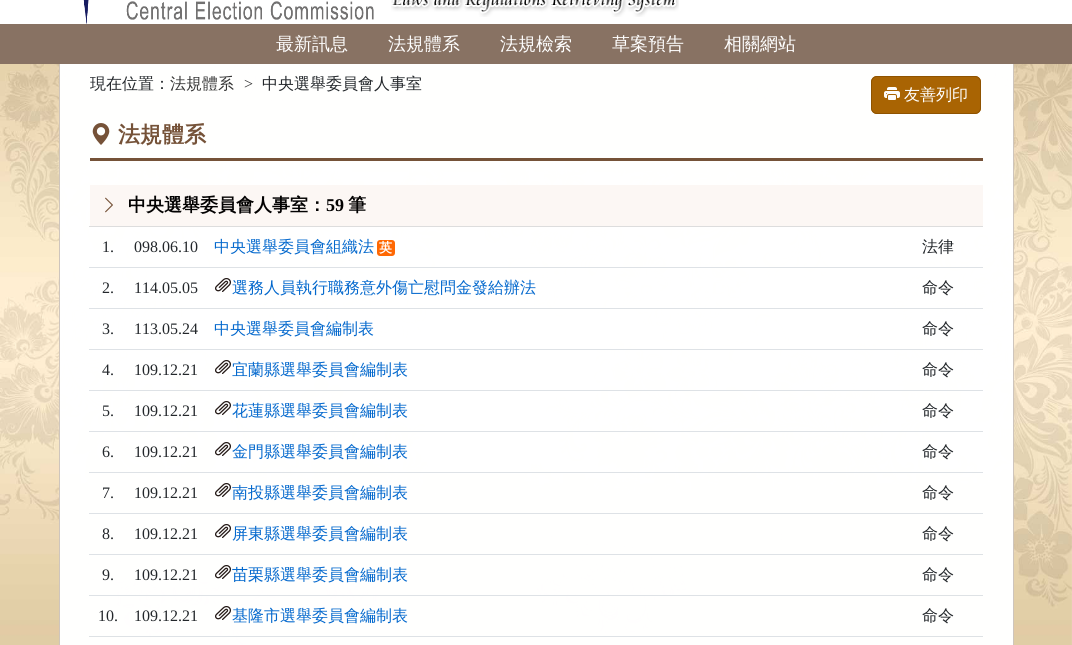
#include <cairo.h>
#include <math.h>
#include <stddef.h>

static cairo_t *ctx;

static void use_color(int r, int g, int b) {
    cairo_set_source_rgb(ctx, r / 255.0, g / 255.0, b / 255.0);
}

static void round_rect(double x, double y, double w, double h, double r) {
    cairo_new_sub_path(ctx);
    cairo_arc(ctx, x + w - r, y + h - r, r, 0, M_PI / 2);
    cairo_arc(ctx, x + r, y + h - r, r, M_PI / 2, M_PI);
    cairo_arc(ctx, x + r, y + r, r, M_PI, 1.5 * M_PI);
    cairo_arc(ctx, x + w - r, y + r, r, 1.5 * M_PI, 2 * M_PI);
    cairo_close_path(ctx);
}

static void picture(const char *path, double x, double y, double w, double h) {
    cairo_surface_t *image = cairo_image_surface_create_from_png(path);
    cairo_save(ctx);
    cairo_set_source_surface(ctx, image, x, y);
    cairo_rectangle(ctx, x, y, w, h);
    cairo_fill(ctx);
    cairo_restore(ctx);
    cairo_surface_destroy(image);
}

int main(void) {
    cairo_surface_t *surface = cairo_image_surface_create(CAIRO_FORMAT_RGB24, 1072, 645);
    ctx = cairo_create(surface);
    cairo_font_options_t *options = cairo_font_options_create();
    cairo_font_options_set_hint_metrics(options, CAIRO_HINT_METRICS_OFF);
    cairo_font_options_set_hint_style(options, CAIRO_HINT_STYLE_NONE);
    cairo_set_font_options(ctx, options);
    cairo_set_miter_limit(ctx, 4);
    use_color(255, 255, 255);
    cairo_paint(ctx);
    picture("img1.png", 83, 0, 291, 24);
    picture("img2.png", 391, 0, 288, 17);
    use_color(136, 114, 99);
    cairo_rectangle(ctx, 0, 24, 1072, 40);
    cairo_fill(ctx);
    cairo_select_font_face(ctx, "WenQuanYi Zen Hei Medium", CAIRO_FONT_SLANT_NORMAL, CAIRO_FONT_WEIGHT_NORMAL);
    cairo_set_font_size(ctx, 18);
    use_color(255, 255, 255);
    cairo_move_to(ctx, 276, 50);
    cairo_show_text(ctx, "最新訊息");
    cairo_move_to(ctx, 388, 50);
    cairo_show_text(ctx, "法規體系");
    cairo_move_to(ctx, 500, 50);
    cairo_show_text(ctx, "法規檢索");
    cairo_move_to(ctx, 612, 50);
    cairo_show_text(ctx, "草案預告");
    cairo_move_to(ctx, 724, 50);
    cairo_show_text(ctx, "相關網站");
    picture("img3.png", 0, 64, 1072, 581);
    cairo_set_source_rgba(ctx, 1, 1, 1, 0.99);
    cairo_rectangle(ctx, 60, 64, 953, 581);
    cairo_fill(ctx);
    use_color(206, 197, 189);
    cairo_rectangle(ctx, 1013, 64, 1, 581);
    cairo_fill(ctx);
    cairo_rectangle(ctx, 59, 64, 1, 581);
    cairo_fill(ctx);
    cairo_set_font_size(ctx, 16);
    use_color(35, 39, 43);
    cairo_move_to(ctx, 90, 89);
    cairo_show_text(ctx, "現在位置：");
    use_color(53, 53, 53);
    cairo_move_to(ctx, 170, 89);
    cairo_show_text(ctx, "法規體系");
    cairo_select_font_face(ctx, "Liberation Serif", CAIRO_FONT_SLANT_NORMAL, CAIRO_FONT_WEIGHT_NORMAL);
    cairo_move_to(ctx, 244, 89);
    cairo_show_text(ctx, ">");
    cairo_select_font_face(ctx, "WenQuanYi Zen Hei Medium", CAIRO_FONT_SLANT_NORMAL, CAIRO_FONT_WEIGHT_NORMAL);
    use_color(35, 39, 43);
    cairo_move_to(ctx, 262, 89);
    cairo_show_text(ctx, "中央選舉委員會人事室");
    use_color(169, 100, 3);
    round_rect(871, 76, 110, 38, 6);
    cairo_fill(ctx);
    round_rect(871.5, 76.5, 109, 37, 5.5);
    cairo_set_source_rgba(ctx, 0.561, 0.325, 0, 0.99);
    cairo_set_line_width(ctx, 1);
    cairo_stroke(ctx);
    picture("img4.png", 884, 87, 16, 13);
    use_color(255, 255, 255);
    cairo_move_to(ctx, 904, 100);
    cairo_show_text(ctx, "友善列印");
    use_color(117, 82, 56);
    cairo_rectangle(ctx, 90, 158, 893, 3);
    cairo_fill(ctx);
    picture("img5.png", 92, 123, 18, 22);
    cairo_select_font_face(ctx, "WenQuanYi Zen Hei", CAIRO_FONT_SLANT_NORMAL, CAIRO_FONT_WEIGHT_BOLD);
    cairo_set_font_size(ctx, 22);
    cairo_move_to(ctx, 118, 142);
    cairo_show_text(ctx, "法規體系");
    use_color(252, 247, 244);
    cairo_rectangle(ctx, 90, 185, 893, 41);
    cairo_fill(ctx);
    picture("img6.png", 105, 197, 8, 16);
    cairo_set_font_size(ctx, 18);
    use_color(3, 2, 2);
    cairo_move_to(ctx, 128, 211);
    cairo_show_text(ctx, "中央選舉委員會人事室：");
    cairo_select_font_face(ctx, "Liberation Serif", CAIRO_FONT_SLANT_NORMAL, CAIRO_FONT_WEIGHT_BOLD);
    cairo_move_to(ctx, 326, 211);
    cairo_show_text(ctx, "59");
    cairo_select_font_face(ctx, "WenQuanYi Zen Hei", CAIRO_FONT_SLANT_NORMAL, CAIRO_FONT_WEIGHT_BOLD);
    cairo_move_to(ctx, 348, 211);
    cairo_show_text(ctx, "筆");
    use_color(221, 221, 221);
    cairo_rectangle(ctx, 89, 226, 894, 1);
    cairo_fill(ctx);
    use_color(222, 226, 230);
    cairo_rectangle(ctx, 893, 267, 90, 1);
    cairo_fill(ctx);
    cairo_set_source_rgba(ctx, 0.871, 0.886, 0.902, 0.99);
    cairo_rectangle(ctx, 205, 267, 689, 1);
    cairo_fill(ctx);
    cairo_rectangle(ctx, 125, 267, 81, 1);
    cairo_fill(ctx);
    cairo_rectangle(ctx, 89, 267, 37, 1);
    cairo_fill(ctx);
    cairo_select_font_face(ctx, "Liberation Serif", CAIRO_FONT_SLANT_NORMAL, CAIRO_FONT_WEIGHT_NORMAL);
    cairo_set_font_size(ctx, 16);
    use_color(35, 39, 43);
    cairo_move_to(ctx, 102, 252);
    cairo_show_text(ctx, "1.");
    cairo_move_to(ctx, 134, 252);
    cairo_show_text(ctx, "098.06.10");
    cairo_select_font_face(ctx, "WenQuanYi Zen Hei Medium", CAIRO_FONT_SLANT_NORMAL, CAIRO_FONT_WEIGHT_NORMAL);
    use_color(3, 104, 205);
    cairo_move_to(ctx, 214, 252);
    cairo_show_text(ctx, "中央選舉委員會組織法");
    use_color(255, 104, 3);
    round_rect(377, 240, 18, 16, 3);
    cairo_fill(ctx);
    cairo_select_font_face(ctx, "WenQuanYi Zen Hei", CAIRO_FONT_SLANT_NORMAL, CAIRO_FONT_WEIGHT_BOLD);
    cairo_set_font_size(ctx, 13);
    use_color(255, 255, 255);
    cairo_move_to(ctx, 379, 252);
    cairo_show_text(ctx, "英");
    cairo_select_font_face(ctx, "WenQuanYi Zen Hei Medium", CAIRO_FONT_SLANT_NORMAL, CAIRO_FONT_WEIGHT_NORMAL);
    cairo_set_font_size(ctx, 16);
    use_color(35, 39, 43);
    cairo_move_to(ctx, 922, 252);
    cairo_show_text(ctx, "法律");
    use_color(222, 226, 230);
    cairo_rectangle(ctx, 893, 308, 90, 1);
    cairo_fill(ctx);
    cairo_set_source_rgba(ctx, 0.871, 0.886, 0.902, 0.99);
    cairo_rectangle(ctx, 205, 308, 689, 1);
    cairo_fill(ctx);
    cairo_rectangle(ctx, 125, 308, 81, 1);
    cairo_fill(ctx);
    cairo_rectangle(ctx, 89, 308, 37, 1);
    cairo_fill(ctx);
    cairo_select_font_face(ctx, "Liberation Serif", CAIRO_FONT_SLANT_NORMAL, CAIRO_FONT_WEIGHT_NORMAL);
    use_color(35, 39, 43);
    cairo_move_to(ctx, 102, 293);
    cairo_show_text(ctx, "2.");
    cairo_move_to(ctx, 134, 293);
    cairo_show_text(ctx, "114.05.05");
    picture("img7.png", 215, 278, 16, 14);
    cairo_select_font_face(ctx, "WenQuanYi Zen Hei Medium", CAIRO_FONT_SLANT_NORMAL, CAIRO_FONT_WEIGHT_NORMAL);
    use_color(3, 104, 205);
    cairo_move_to(ctx, 232, 293);
    cairo_show_text(ctx, "選務人員執行職務意外傷亡慰問金發給辦法");
    use_color(35, 39, 43);
    cairo_move_to(ctx, 922, 293);
    cairo_show_text(ctx, "命令");
    use_color(222, 226, 230);
    cairo_rectangle(ctx, 893, 349, 90, 1);
    cairo_fill(ctx);
    cairo_set_source_rgba(ctx, 0.871, 0.886, 0.902, 0.99);
    cairo_rectangle(ctx, 205, 349, 689, 1);
    cairo_fill(ctx);
    cairo_rectangle(ctx, 125, 349, 81, 1);
    cairo_fill(ctx);
    cairo_rectangle(ctx, 89, 349, 37, 1);
    cairo_fill(ctx);
    cairo_select_font_face(ctx, "Liberation Serif", CAIRO_FONT_SLANT_NORMAL, CAIRO_FONT_WEIGHT_NORMAL);
    use_color(35, 39, 43);
    cairo_move_to(ctx, 102, 334);
    cairo_show_text(ctx, "3.");
    cairo_move_to(ctx, 134, 334);
    cairo_show_text(ctx, "113.05.24");
    cairo_select_font_face(ctx, "WenQuanYi Zen Hei Medium", CAIRO_FONT_SLANT_NORMAL, CAIRO_FONT_WEIGHT_NORMAL);
    use_color(3, 104, 205);
    cairo_move_to(ctx, 214, 334);
    cairo_show_text(ctx, "中央選舉委員會編制表");
    use_color(35, 39, 43);
    cairo_move_to(ctx, 922, 334);
    cairo_show_text(ctx, "命令");
    use_color(222, 226, 230);
    cairo_rectangle(ctx, 893, 390, 90, 1);
    cairo_fill(ctx);
    cairo_set_source_rgba(ctx, 0.871, 0.886, 0.902, 0.99);
    cairo_rectangle(ctx, 205, 390, 689, 1);
    cairo_fill(ctx);
    cairo_rectangle(ctx, 125, 390, 81, 1);
    cairo_fill(ctx);
    cairo_rectangle(ctx, 89, 390, 37, 1);
    cairo_fill(ctx);
    cairo_select_font_face(ctx, "Liberation Serif", CAIRO_FONT_SLANT_NORMAL, CAIRO_FONT_WEIGHT_NORMAL);
    use_color(35, 39, 43);
    cairo_move_to(ctx, 102, 375);
    cairo_show_text(ctx, "4.");
    cairo_move_to(ctx, 134, 375);
    cairo_show_text(ctx, "109.12.21");
    picture("img8.png", 215, 360, 16, 14);
    cairo_select_font_face(ctx, "WenQuanYi Zen Hei Medium", CAIRO_FONT_SLANT_NORMAL, CAIRO_FONT_WEIGHT_NORMAL);
    use_color(3, 104, 205);
    cairo_move_to(ctx, 232, 375);
    cairo_show_text(ctx, "宜蘭縣選舉委員會編制表");
    use_color(35, 39, 43);
    cairo_move_to(ctx, 922, 375);
    cairo_show_text(ctx, "命令");
    use_color(222, 226, 230);
    cairo_rectangle(ctx, 893, 431, 90, 1);
    cairo_fill(ctx);
    cairo_set_source_rgba(ctx, 0.871, 0.886, 0.902, 0.99);
    cairo_rectangle(ctx, 205, 431, 689, 1);
    cairo_fill(ctx);
    cairo_rectangle(ctx, 125, 431, 81, 1);
    cairo_fill(ctx);
    cairo_rectangle(ctx, 89, 431, 37, 1);
    cairo_fill(ctx);
    cairo_select_font_face(ctx, "Liberation Serif", CAIRO_FONT_SLANT_NORMAL, CAIRO_FONT_WEIGHT_NORMAL);
    use_color(35, 39, 43);
    cairo_move_to(ctx, 102, 416);
    cairo_show_text(ctx, "5.");
    cairo_move_to(ctx, 134, 416);
    cairo_show_text(ctx, "109.12.21");
    picture("img9.png", 215, 401, 16, 14);
    cairo_select_font_face(ctx, "WenQuanYi Zen Hei Medium", CAIRO_FONT_SLANT_NORMAL, CAIRO_FONT_WEIGHT_NORMAL);
    use_color(3, 104, 205);
    cairo_move_to(ctx, 232, 416);
    cairo_show_text(ctx, "花蓮縣選舉委員會編制表");
    use_color(35, 39, 43);
    cairo_move_to(ctx, 922, 416);
    cairo_show_text(ctx, "命令");
    use_color(222, 226, 230);
    cairo_rectangle(ctx, 893, 472, 90, 1);
    cairo_fill(ctx);
    cairo_set_source_rgba(ctx, 0.871, 0.886, 0.902, 0.99);
    cairo_rectangle(ctx, 205, 472, 689, 1);
    cairo_fill(ctx);
    cairo_rectangle(ctx, 125, 472, 81, 1);
    cairo_fill(ctx);
    cairo_rectangle(ctx, 89, 472, 37, 1);
    cairo_fill(ctx);
    cairo_select_font_face(ctx, "Liberation Serif", CAIRO_FONT_SLANT_NORMAL, CAIRO_FONT_WEIGHT_NORMAL);
    use_color(35, 39, 43);
    cairo_move_to(ctx, 102, 457);
    cairo_show_text(ctx, "6.");
    cairo_move_to(ctx, 134, 457);
    cairo_show_text(ctx, "109.12.21");
    picture("img10.png", 215, 442, 16, 14);
    cairo_select_font_face(ctx, "WenQuanYi Zen Hei Medium", CAIRO_FONT_SLANT_NORMAL, CAIRO_FONT_WEIGHT_NORMAL);
    use_color(3, 104, 205);
    cairo_move_to(ctx, 232, 457);
    cairo_show_text(ctx, "金門縣選舉委員會編制表");
    use_color(35, 39, 43);
    cairo_move_to(ctx, 922, 457);
    cairo_show_text(ctx, "命令");
    use_color(222, 226, 230);
    cairo_rectangle(ctx, 893, 513, 90, 1);
    cairo_fill(ctx);
    cairo_set_source_rgba(ctx, 0.871, 0.886, 0.902, 0.99);
    cairo_rectangle(ctx, 205, 513, 689, 1);
    cairo_fill(ctx);
    cairo_rectangle(ctx, 125, 513, 81, 1);
    cairo_fill(ctx);
    cairo_rectangle(ctx, 89, 513, 37, 1);
    cairo_fill(ctx);
    cairo_select_font_face(ctx, "Liberation Serif", CAIRO_FONT_SLANT_NORMAL, CAIRO_FONT_WEIGHT_NORMAL);
    use_color(35, 39, 43);
    cairo_move_to(ctx, 102, 498);
    cairo_show_text(ctx, "7.");
    cairo_move_to(ctx, 134, 498);
    cairo_show_text(ctx, "109.12.21");
    picture("img11.png", 215, 483, 16, 14);
    cairo_select_font_face(ctx, "WenQuanYi Zen Hei Medium", CAIRO_FONT_SLANT_NORMAL, CAIRO_FONT_WEIGHT_NORMAL);
    use_color(3, 104, 205);
    cairo_move_to(ctx, 232, 498);
    cairo_show_text(ctx, "南投縣選舉委員會編制表");
    use_color(35, 39, 43);
    cairo_move_to(ctx, 922, 498);
    cairo_show_text(ctx, "命令");
    use_color(222, 226, 229);
    cairo_rectangle(ctx, 893, 554, 90, 1);
    cairo_fill(ctx);
    cairo_set_source_rgba(ctx, 0.871, 0.886, 0.902, 0.99);
    cairo_rectangle(ctx, 205, 554, 689, 1);
    cairo_fill(ctx);
    cairo_rectangle(ctx, 125, 554, 81, 1);
    cairo_fill(ctx);
    cairo_rectangle(ctx, 89, 554, 37, 1);
    cairo_fill(ctx);
    cairo_select_font_face(ctx, "Liberation Serif", CAIRO_FONT_SLANT_NORMAL, CAIRO_FONT_WEIGHT_NORMAL);
    use_color(35, 39, 43);
    cairo_move_to(ctx, 102, 539);
    cairo_show_text(ctx, "8.");
    cairo_move_to(ctx, 134, 539);
    cairo_show_text(ctx, "109.12.21");
    picture("img12.png", 215, 524, 16, 14);
    cairo_select_font_face(ctx, "WenQuanYi Zen Hei Medium", CAIRO_FONT_SLANT_NORMAL, CAIRO_FONT_WEIGHT_NORMAL);
    use_color(3, 104, 205);
    cairo_move_to(ctx, 232, 539);
    cairo_show_text(ctx, "屏東縣選舉委員會編制表");
    use_color(35, 39, 43);
    cairo_move_to(ctx, 922, 539);
    cairo_show_text(ctx, "命令");
    use_color(222, 226, 229);
    cairo_rectangle(ctx, 893, 595, 90, 1);
    cairo_fill(ctx);
    cairo_set_source_rgba(ctx, 0.871, 0.886, 0.902, 0.99);
    cairo_rectangle(ctx, 205, 595, 689, 1);
    cairo_fill(ctx);
    cairo_rectangle(ctx, 125, 595, 81, 1);
    cairo_fill(ctx);
    cairo_rectangle(ctx, 89, 595, 37, 1);
    cairo_fill(ctx);
    cairo_select_font_face(ctx, "Liberation Serif", CAIRO_FONT_SLANT_NORMAL, CAIRO_FONT_WEIGHT_NORMAL);
    use_color(35, 39, 43);
    cairo_move_to(ctx, 102, 580);
    cairo_show_text(ctx, "9.");
    cairo_move_to(ctx, 134, 580);
    cairo_show_text(ctx, "109.12.21");
    picture("img13.png", 215, 565, 16, 14);
    cairo_select_font_face(ctx, "WenQuanYi Zen Hei Medium", CAIRO_FONT_SLANT_NORMAL, CAIRO_FONT_WEIGHT_NORMAL);
    use_color(3, 104, 205);
    cairo_move_to(ctx, 232, 580);
    cairo_show_text(ctx, "苗栗縣選舉委員會編制表");
    use_color(35, 39, 43);
    cairo_move_to(ctx, 922, 580);
    cairo_show_text(ctx, "命令");
    use_color(222, 226, 229);
    cairo_rectangle(ctx, 893, 636, 90, 1);
    cairo_fill(ctx);
    cairo_set_source_rgba(ctx, 0.871, 0.886, 0.902, 0.99);
    cairo_rectangle(ctx, 205, 636, 689, 1);
    cairo_fill(ctx);
    cairo_rectangle(ctx, 125, 636, 81, 1);
    cairo_fill(ctx);
    use_color(222, 226, 229);
    cairo_rectangle(ctx, 89, 636, 37, 1);
    cairo_fill(ctx);
    cairo_select_font_face(ctx, "Liberation Serif", CAIRO_FONT_SLANT_NORMAL, CAIRO_FONT_WEIGHT_NORMAL);
    use_color(35, 39, 43);
    cairo_move_to(ctx, 98, 621);
    cairo_show_text(ctx, "10.");
    cairo_move_to(ctx, 134, 621);
    cairo_show_text(ctx, "109.12.21");
    picture("img14.png", 215, 606, 16, 14);
    cairo_select_font_face(ctx, "WenQuanYi Zen Hei Medium", CAIRO_FONT_SLANT_NORMAL, CAIRO_FONT_WEIGHT_NORMAL);
    use_color(3, 104, 205);
    cairo_move_to(ctx, 232, 621);
    cairo_show_text(ctx, "基隆市選舉委員會編制表");
    use_color(35, 39, 43);
    cairo_move_to(ctx, 922, 621);
    cairo_show_text(ctx, "命令");
    cairo_surface_write_to_png(surface, "result.png");
    cairo_font_options_destroy(options);
    cairo_destroy(ctx);
    cairo_surface_destroy(surface);
    return 0;
}
